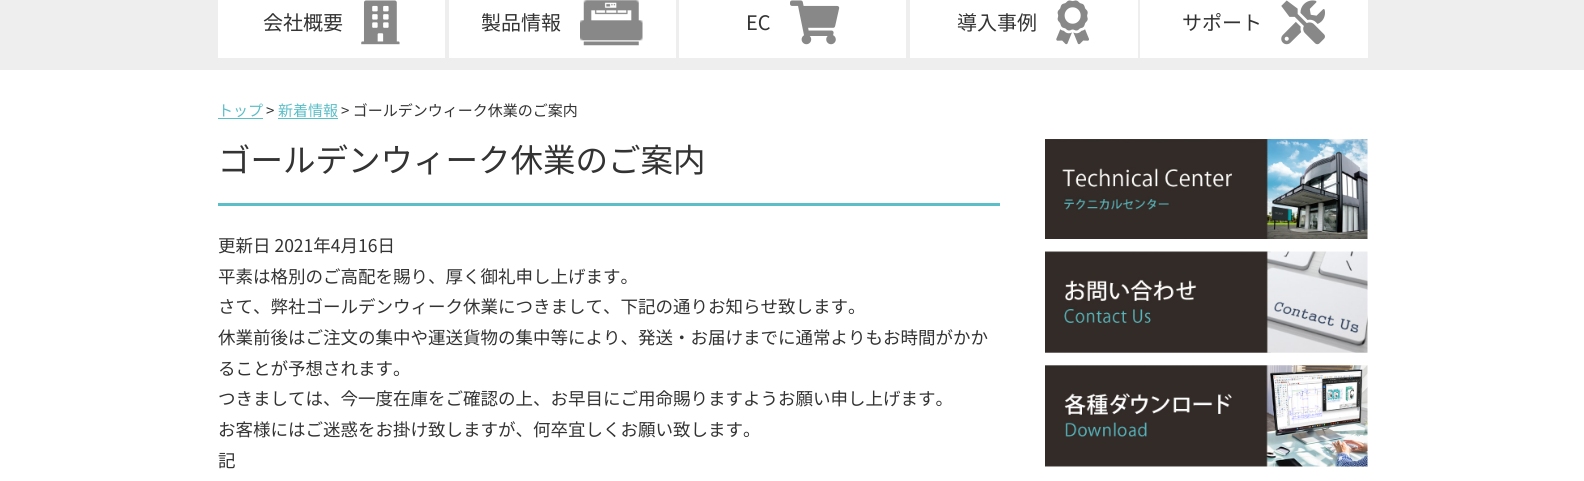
#include <cairo.h>
#include <math.h>
#include <stddef.h>

static cairo_t *ctx;

static void use_color(int r, int g, int b) {
    cairo_set_source_rgb(ctx, r / 255.0, g / 255.0, b / 255.0);
}

static void picture(const char *path, double x, double y, double w, double h) {
    cairo_surface_t *image = cairo_image_surface_create_from_png(path);
    cairo_save(ctx);
    cairo_set_source_surface(ctx, image, x, y);
    cairo_rectangle(ctx, x, y, w, h);
    cairo_fill(ctx);
    cairo_restore(ctx);
    cairo_surface_destroy(image);
}

int main(void) {
    cairo_surface_t *surface = cairo_image_surface_create(CAIRO_FORMAT_RGB24, 1584, 481);
    ctx = cairo_create(surface);
    cairo_font_options_t *options = cairo_font_options_create();
    cairo_font_options_set_hint_metrics(options, CAIRO_HINT_METRICS_OFF);
    cairo_font_options_set_hint_style(options, CAIRO_HINT_STYLE_NONE);
    cairo_set_font_options(ctx, options);
    cairo_set_miter_limit(ctx, 4);
    use_color(255, 255, 255);
    cairo_paint(ctx);
    use_color(238, 238, 238);
    cairo_rectangle(ctx, 0, 0, 1584, 70);
    cairo_fill(ctx);
    use_color(255, 255, 255);
    cairo_rectangle(ctx, 218, 0, 227, 58);
    cairo_fill(ctx);
    cairo_select_font_face(ctx, "Noto Sans JP", CAIRO_FONT_SLANT_NORMAL, CAIRO_FONT_WEIGHT_NORMAL);
    cairo_set_font_size(ctx, 20);
    use_color(51, 51, 51);
    cairo_move_to(ctx, 263, 30);
    cairo_show_text(ctx, "会社概要");
    picture("img1.png", 361, 0, 39, 45);
    use_color(255, 255, 255);
    cairo_rectangle(ctx, 449, 0, 227, 58);
    cairo_fill(ctx);
    use_color(51, 51, 51);
    cairo_move_to(ctx, 481, 30);
    cairo_show_text(ctx, "製品情報");
    picture("img2.png", 580, 0, 63, 46);
    use_color(255, 255, 255);
    cairo_rectangle(ctx, 679, 0, 227, 58);
    cairo_fill(ctx);
    use_color(51, 51, 51);
    cairo_move_to(ctx, 746, 30);
    cairo_show_text(ctx, "EC");
    picture("img3.png", 790, 0, 50, 45);
    use_color(255, 255, 255);
    cairo_rectangle(ctx, 910, 0, 228, 58);
    cairo_fill(ctx);
    use_color(51, 51, 51);
    cairo_move_to(ctx, 957, 30);
    cairo_show_text(ctx, "導入事例");
    picture("img4.png", 1056, 0, 33, 45);
    use_color(255, 255, 255);
    cairo_rectangle(ctx, 1140, 0, 228, 58);
    cairo_fill(ctx);
    use_color(51, 51, 51);
    cairo_move_to(ctx, 1182, 30);
    cairo_show_text(ctx, "サポート");
    picture("img5.png", 1281, 0, 44, 45);
    cairo_set_font_size(ctx, 15);
    use_color(92, 190, 199);
    cairo_move_to(ctx, 218, 116);
    cairo_show_text(ctx, "トップ");
    cairo_rectangle(ctx, 218, 118, 45, 1);
    cairo_fill(ctx);
    use_color(51, 51, 51);
    cairo_move_to(ctx, 266, 116);
    cairo_show_text(ctx, ">");
    use_color(92, 190, 199);
    cairo_move_to(ctx, 278, 116);
    cairo_show_text(ctx, "新着情報");
    cairo_rectangle(ctx, 278, 118, 60, 1);
    cairo_fill(ctx);
    use_color(51, 51, 51);
    cairo_move_to(ctx, 341, 116);
    cairo_show_text(ctx, "> ゴールデンウィーク休業のご案内");
    use_color(92, 190, 199);
    cairo_rectangle(ctx, 218, 203, 782, 3);
    cairo_fill(ctx);
    cairo_set_font_size(ctx, 32.5);
    use_color(51, 51, 51);
    cairo_move_to(ctx, 218, 172);
    cairo_show_text(ctx, "ゴールデンウィーク休業のご案内");
    cairo_set_font_size(ctx, 17.5);
    cairo_move_to(ctx, 218, 252);
    cairo_show_text(ctx, "更新日 2021年4月16日");
    cairo_move_to(ctx, 218, 283);
    cairo_show_text(ctx, "平素は格別のご高配を賜り、厚く御礼申し上げます。");
    cairo_move_to(ctx, 218, 313);
    cairo_show_text(ctx, "さて、弊社ゴールデンウィーク休業につきまして、下記の通りお知らせ致します。");
    cairo_move_to(ctx, 218, 344);
    cairo_show_text(ctx, "休業前後はご注文の集中や運送貨物の集中等により、発送・お届けまでに通常よりもお時間がかか");
    cairo_move_to(ctx, 218, 375);
    cairo_show_text(ctx, "ることが予想されます。");
    cairo_move_to(ctx, 218, 405);
    cairo_show_text(ctx, "つきましては、今一度在庫をご確認の上、お早目にご用命賜りますようお願い申し上げます。");
    cairo_move_to(ctx, 218, 436);
    cairo_show_text(ctx, "お客様にはご迷惑をお掛け致しますが、何卒宜しくお願い致します。");
    cairo_move_to(ctx, 218, 467);
    cairo_show_text(ctx, "記");
    picture("img6.png", 1045, 139, 323, 100);
    picture("img7.png", 1045, 251, 323, 102);
    picture("img8.png", 1045, 365, 323, 102);
    cairo_surface_write_to_png(surface, "result.png");
    cairo_font_options_destroy(options);
    cairo_destroy(ctx);
    cairo_surface_destroy(surface);
    return 0;
}
